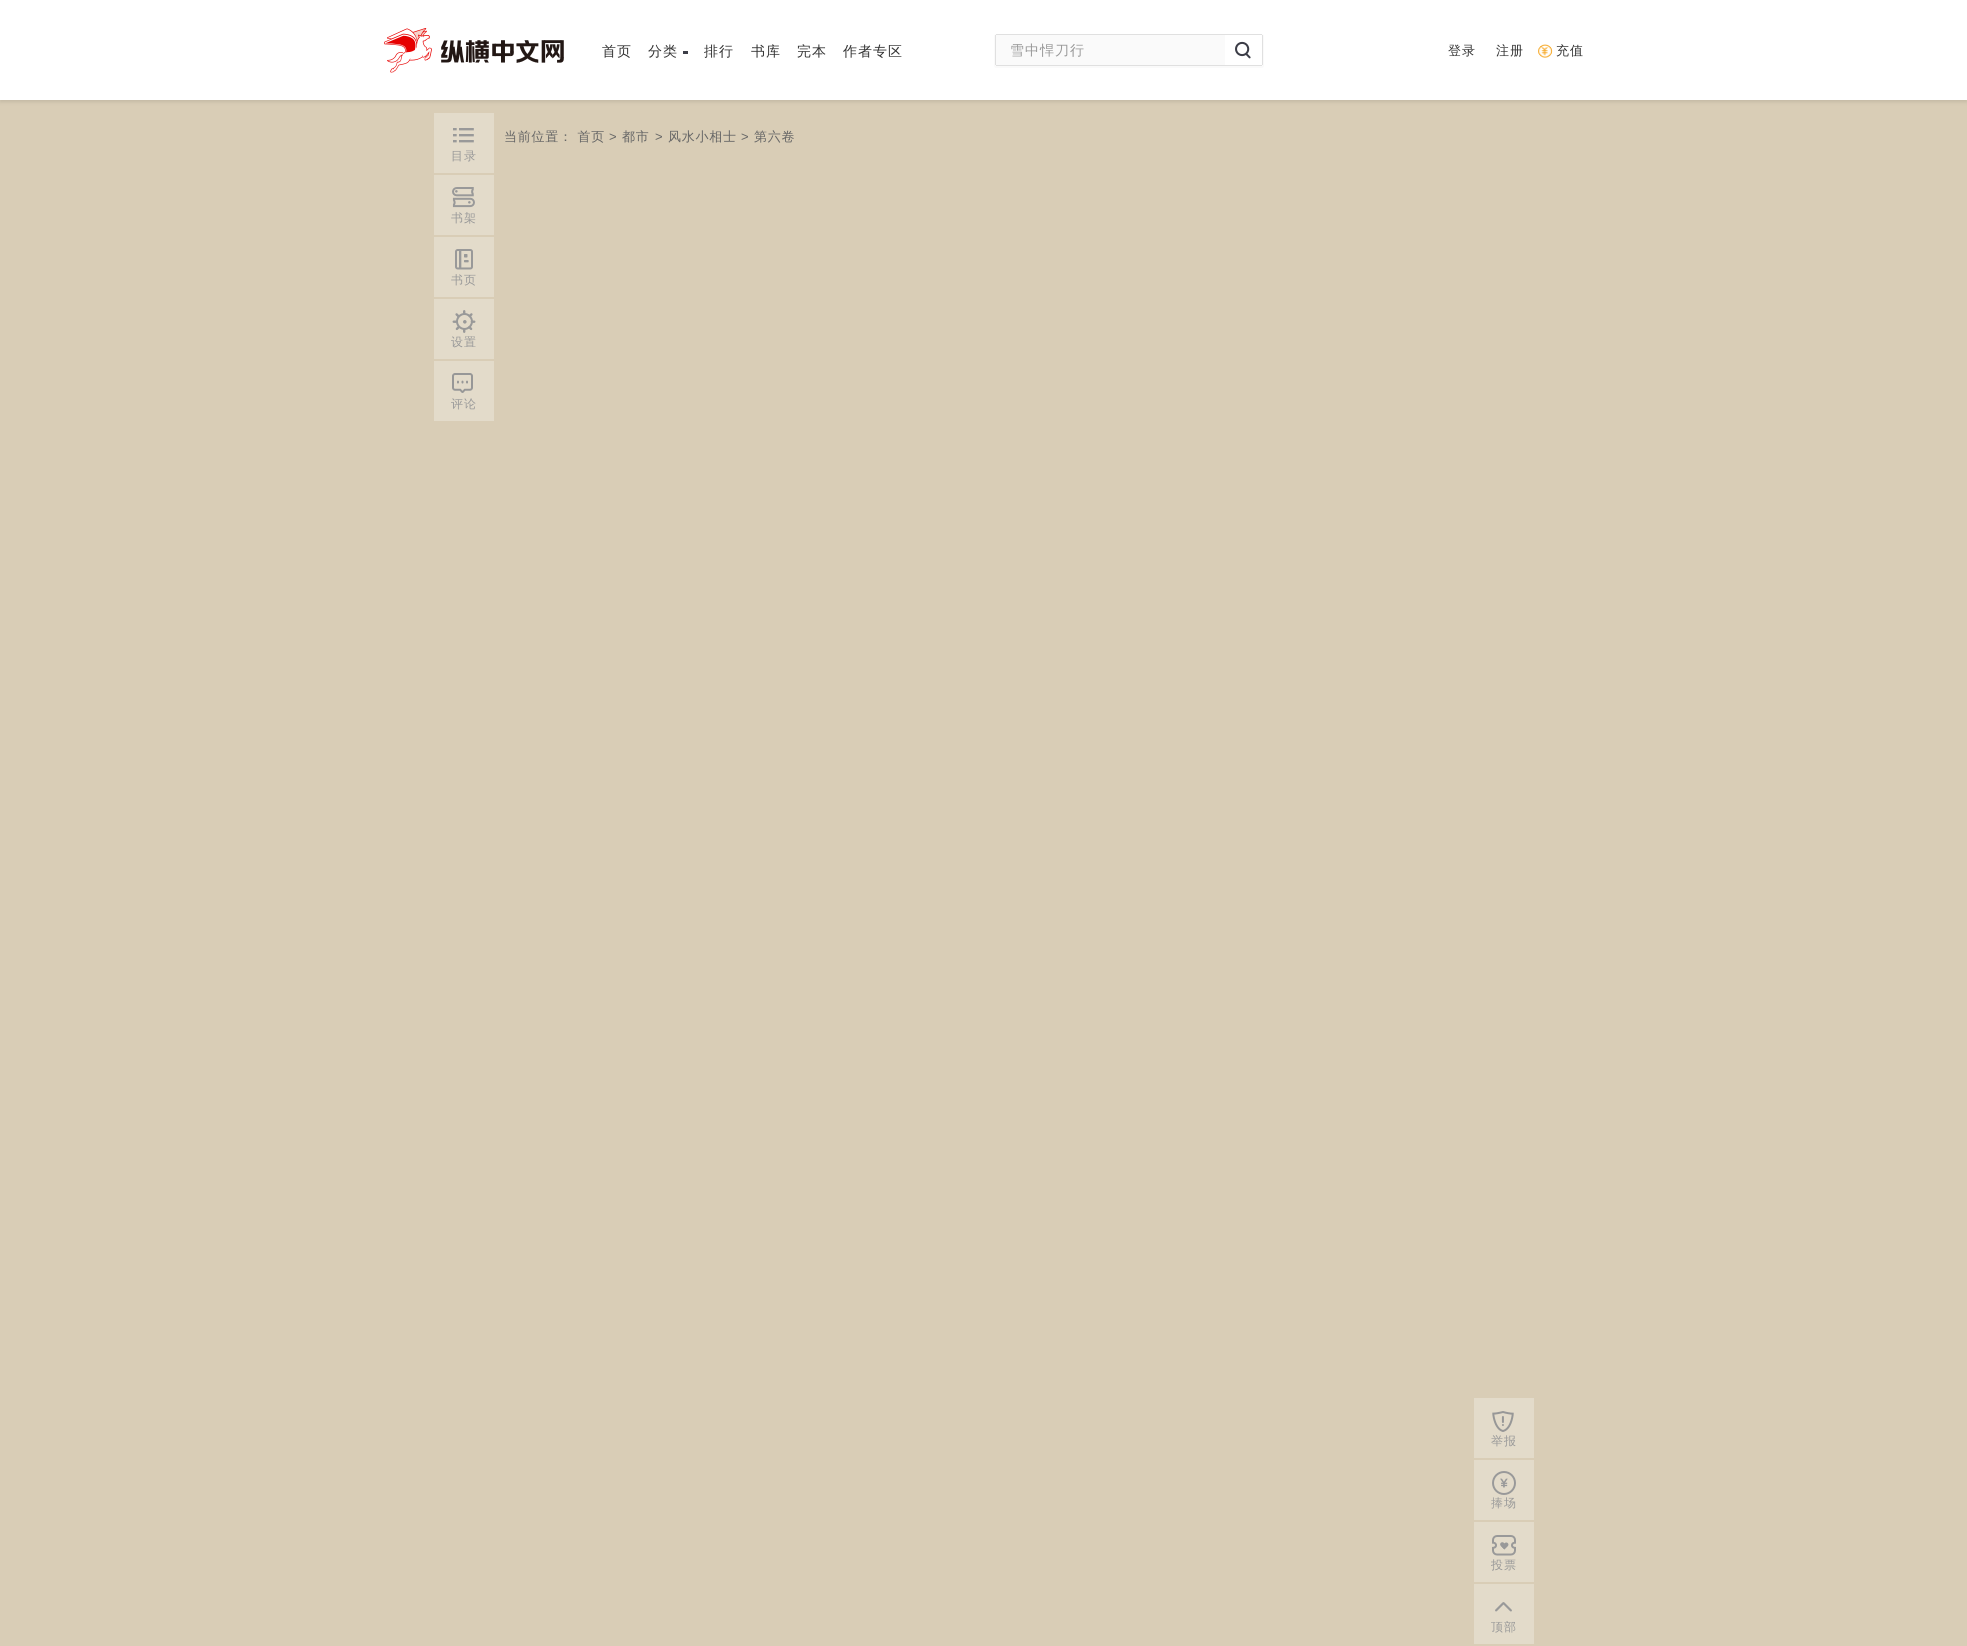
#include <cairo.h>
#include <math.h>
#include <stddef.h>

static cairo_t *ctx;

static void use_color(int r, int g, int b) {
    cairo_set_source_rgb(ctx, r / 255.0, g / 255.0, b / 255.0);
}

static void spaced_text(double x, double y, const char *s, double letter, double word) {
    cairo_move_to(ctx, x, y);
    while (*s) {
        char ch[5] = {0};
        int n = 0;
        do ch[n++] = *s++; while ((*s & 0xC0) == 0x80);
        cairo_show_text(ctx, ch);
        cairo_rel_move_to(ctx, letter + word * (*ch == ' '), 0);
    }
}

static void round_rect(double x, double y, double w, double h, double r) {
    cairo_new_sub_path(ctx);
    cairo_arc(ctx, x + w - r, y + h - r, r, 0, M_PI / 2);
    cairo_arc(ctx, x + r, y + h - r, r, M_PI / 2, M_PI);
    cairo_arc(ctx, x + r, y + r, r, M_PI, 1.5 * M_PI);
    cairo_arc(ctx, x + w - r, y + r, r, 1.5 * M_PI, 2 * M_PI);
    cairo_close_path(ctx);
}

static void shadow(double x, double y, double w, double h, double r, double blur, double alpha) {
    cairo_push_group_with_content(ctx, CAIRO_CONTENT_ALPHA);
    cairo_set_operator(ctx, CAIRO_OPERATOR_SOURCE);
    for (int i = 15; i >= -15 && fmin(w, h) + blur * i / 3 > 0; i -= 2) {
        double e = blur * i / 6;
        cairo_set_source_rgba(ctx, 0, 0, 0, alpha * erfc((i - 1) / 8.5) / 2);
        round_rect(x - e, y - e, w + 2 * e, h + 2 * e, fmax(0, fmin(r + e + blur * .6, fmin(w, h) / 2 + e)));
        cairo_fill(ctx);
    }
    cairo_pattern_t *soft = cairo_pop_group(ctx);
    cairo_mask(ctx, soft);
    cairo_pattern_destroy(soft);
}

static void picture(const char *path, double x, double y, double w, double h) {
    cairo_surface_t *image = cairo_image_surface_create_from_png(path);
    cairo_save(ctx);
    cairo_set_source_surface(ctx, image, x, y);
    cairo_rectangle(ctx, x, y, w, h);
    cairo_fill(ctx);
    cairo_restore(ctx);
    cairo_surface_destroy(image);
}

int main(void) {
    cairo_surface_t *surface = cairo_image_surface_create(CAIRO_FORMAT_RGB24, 1967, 1646);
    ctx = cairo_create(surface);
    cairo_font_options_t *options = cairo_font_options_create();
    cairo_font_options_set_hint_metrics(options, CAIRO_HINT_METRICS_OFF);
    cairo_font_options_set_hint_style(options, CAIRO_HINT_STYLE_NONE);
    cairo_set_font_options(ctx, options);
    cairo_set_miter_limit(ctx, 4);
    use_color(217, 205, 182);
    cairo_paint(ctx);
    use_color(0, 0, 0);
    shadow(0, 2, 1967, 100, 0, 2, 0.1);
    use_color(255, 255, 255);
    cairo_rectangle(ctx, 0, 0, 1967, 100);
    cairo_fill(ctx);
    picture("img1.png", 384, 28, 180, 45);
    cairo_select_font_face(ctx, "WenQuanYi Zen Hei Medium", CAIRO_FONT_SLANT_NORMAL, CAIRO_FONT_WEIGHT_NORMAL);
    cairo_set_font_size(ctx, 14);
    use_color(51, 51, 51);
    spaced_text(602, 56, "首页", 1, 0);
    spaced_text(648, 56, "分类", 1, 0);
    use_color(60, 61, 71);
    cairo_rectangle(ctx, 683, 51, 5, 3);
    cairo_fill(ctx);
    use_color(51, 51, 51);
    spaced_text(704, 56, "排行", 1, 0);
    spaced_text(751, 56, "书库", 1, 0);
    spaced_text(797, 56, "完本", 1, 0);
    spaced_text(843, 56, "作者专区", 1, 0);
    use_color(250, 250, 250);
    round_rect(994, 34, 270, 34, 2);
    cairo_fill(ctx);
    use_color(255, 255, 255);
    cairo_new_path(ctx);
    cairo_move_to(ctx, 1225, 34);
    cairo_line_to(ctx, 1261, 34);
    cairo_curve_to(ctx, 1262, 34, 1263, 35, 1263, 36);
    cairo_line_to(ctx, 1263, 64);
    cairo_curve_to(ctx, 1263, 65, 1262, 66, 1261, 66);
    cairo_line_to(ctx, 1225, 66);
    cairo_close_path(ctx);
    cairo_fill(ctx);
    picture("img2.png", 1235, 41, 16, 18);
    use_color(224, 224, 224);
    cairo_rectangle(ctx, 996, 34, 266, 1);
    cairo_fill(ctx);
    cairo_rectangle(ctx, 1262, 35, 1, 30);
    cairo_fill(ctx);
    cairo_rectangle(ctx, 996, 65, 266, 1);
    cairo_fill(ctx);
    cairo_rectangle(ctx, 995, 35, 1, 30);
    cairo_fill(ctx);
    use_color(153, 153, 153);
    spaced_text(1010, 55, "雪中悍刀行", 1, 0);
    cairo_set_font_size(ctx, 13);
    use_color(51, 51, 51);
    spaced_text(1448, 55, "登录", 1, 0);
    spaced_text(1496, 55, "注册", 1, 0);
    picture("img3.png", 1538, 44, 15, 14);
    spaced_text(1556, 55, "充值", 1, 0);
    use_color(102, 102, 102);
    spaced_text(504, 141, "当前位置： 首页", 0.75, 0);
    cairo_select_font_face(ctx, "Liberation Sans", CAIRO_FONT_SLANT_NORMAL, CAIRO_FONT_WEIGHT_NORMAL);
    spaced_text(609, 141, ">", 0.75, 0);
    cairo_select_font_face(ctx, "WenQuanYi Zen Hei Medium", CAIRO_FONT_SLANT_NORMAL, CAIRO_FONT_WEIGHT_NORMAL);
    spaced_text(622, 141, "都市", 0.75, 0);
    cairo_select_font_face(ctx, "Liberation Sans", CAIRO_FONT_SLANT_NORMAL, CAIRO_FONT_WEIGHT_NORMAL);
    spaced_text(655, 141, ">", 0.75, 0);
    cairo_select_font_face(ctx, "WenQuanYi Zen Hei Medium", CAIRO_FONT_SLANT_NORMAL, CAIRO_FONT_WEIGHT_NORMAL);
    spaced_text(668, 141, "风水小相士", 0.75, 0);
    cairo_select_font_face(ctx, "Liberation Sans", CAIRO_FONT_SLANT_NORMAL, CAIRO_FONT_WEIGHT_NORMAL);
    spaced_text(741, 141, ">", 0.75, 0);
    cairo_select_font_face(ctx, "WenQuanYi Zen Hei Medium", CAIRO_FONT_SLANT_NORMAL, CAIRO_FONT_WEIGHT_NORMAL);
    spaced_text(754, 141, "第六卷", 0.75, 0);
    use_color(227, 219, 202);
    cairo_rectangle(ctx, 434, 113, 60, 60);
    cairo_fill(ctx);
    picture("img4.png", 453, 128, 21, 15);
    cairo_set_font_size(ctx, 12);
    use_color(153, 153, 153);
    spaced_text(451, 160, "目录", 1, 0);
    use_color(227, 219, 202);
    cairo_rectangle(ctx, 434, 175, 60, 60);
    cairo_fill(ctx);
    picture("img5.png", 452, 187, 23, 21);
    use_color(153, 153, 153);
    spaced_text(451, 222, "书架", 1, 0);
    use_color(227, 219, 202);
    cairo_rectangle(ctx, 434, 237, 60, 60);
    cairo_fill(ctx);
    picture("img6.png", 455, 249, 18, 21);
    use_color(153, 153, 153);
    spaced_text(451, 284, "书页", 1, 0);
    use_color(227, 219, 202);
    cairo_rectangle(ctx, 434, 299, 60, 60);
    cairo_fill(ctx);
    picture("img7.png", 452, 310, 24, 23);
    use_color(153, 153, 153);
    spaced_text(451, 346, "设置", 1, 0);
    use_color(227, 219, 202);
    cairo_rectangle(ctx, 434, 361, 60, 60);
    cairo_fill(ctx);
    picture("img8.png", 452, 373, 21, 20);
    use_color(153, 153, 153);
    spaced_text(451, 408, "评论", 1, 0);
    use_color(227, 219, 202);
    cairo_rectangle(ctx, 1474, 1398, 60, 60);
    cairo_fill(ctx);
    picture("img9.png", 1492, 1411, 22, 21);
    use_color(153, 153, 153);
    spaced_text(1491, 1445, "举报", 1, 0);
    use_color(227, 219, 202);
    cairo_rectangle(ctx, 1474, 1460, 60, 60);
    cairo_fill(ctx);
    picture("img10.png", 1492, 1471, 24, 24);
    use_color(153, 153, 153);
    spaced_text(1491, 1507, "捧场", 1, 0);
    use_color(227, 219, 202);
    cairo_rectangle(ctx, 1474, 1522, 60, 60);
    cairo_fill(ctx);
    picture("img11.png", 1492, 1535, 24, 21);
    use_color(153, 153, 153);
    spaced_text(1491, 1569, "投票", 1, 0);
    use_color(227, 219, 202);
    cairo_rectangle(ctx, 1474, 1584, 60, 60);
    cairo_fill(ctx);
    picture("img12.png", 1495, 1602, 17, 10);
    use_color(153, 153, 153);
    spaced_text(1491, 1631, "顶部", 1, 0);
    cairo_surface_write_to_png(surface, "result.png");
    cairo_font_options_destroy(options);
    cairo_destroy(ctx);
    cairo_surface_destroy(surface);
    return 0;
}
